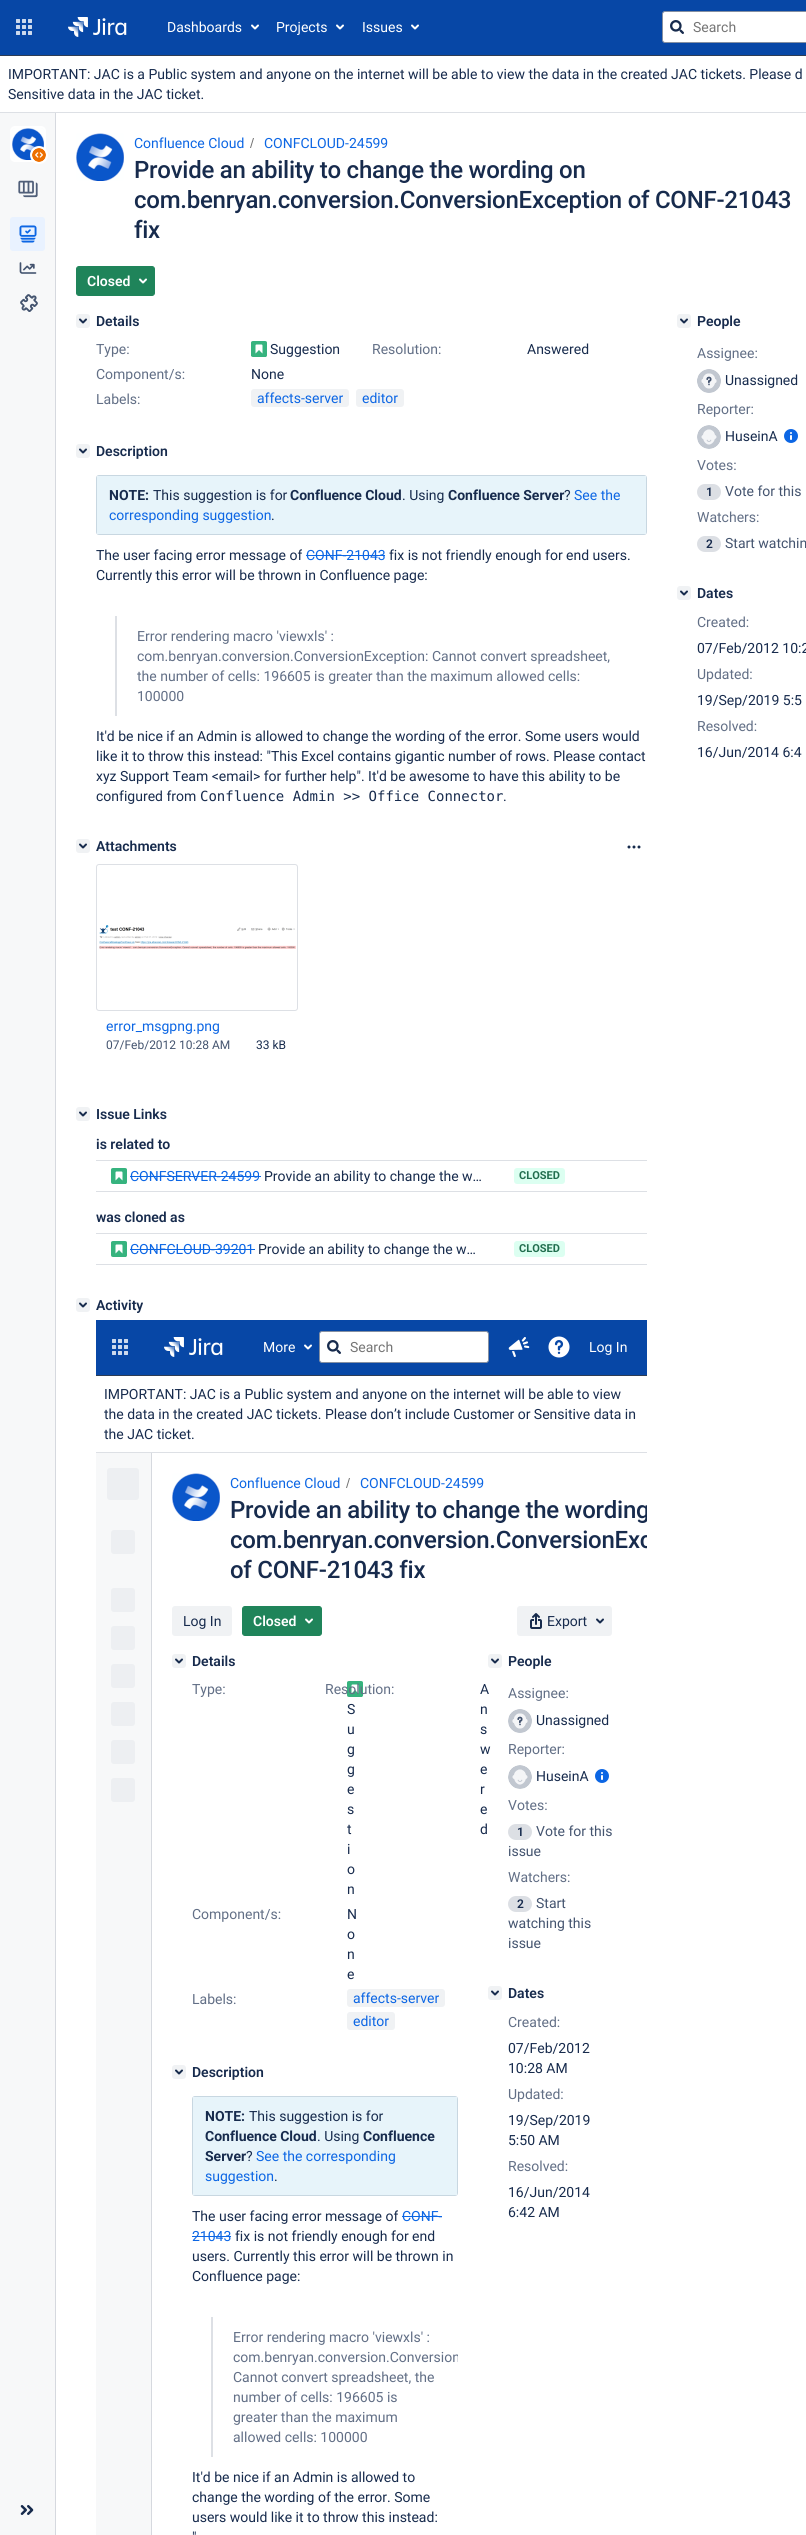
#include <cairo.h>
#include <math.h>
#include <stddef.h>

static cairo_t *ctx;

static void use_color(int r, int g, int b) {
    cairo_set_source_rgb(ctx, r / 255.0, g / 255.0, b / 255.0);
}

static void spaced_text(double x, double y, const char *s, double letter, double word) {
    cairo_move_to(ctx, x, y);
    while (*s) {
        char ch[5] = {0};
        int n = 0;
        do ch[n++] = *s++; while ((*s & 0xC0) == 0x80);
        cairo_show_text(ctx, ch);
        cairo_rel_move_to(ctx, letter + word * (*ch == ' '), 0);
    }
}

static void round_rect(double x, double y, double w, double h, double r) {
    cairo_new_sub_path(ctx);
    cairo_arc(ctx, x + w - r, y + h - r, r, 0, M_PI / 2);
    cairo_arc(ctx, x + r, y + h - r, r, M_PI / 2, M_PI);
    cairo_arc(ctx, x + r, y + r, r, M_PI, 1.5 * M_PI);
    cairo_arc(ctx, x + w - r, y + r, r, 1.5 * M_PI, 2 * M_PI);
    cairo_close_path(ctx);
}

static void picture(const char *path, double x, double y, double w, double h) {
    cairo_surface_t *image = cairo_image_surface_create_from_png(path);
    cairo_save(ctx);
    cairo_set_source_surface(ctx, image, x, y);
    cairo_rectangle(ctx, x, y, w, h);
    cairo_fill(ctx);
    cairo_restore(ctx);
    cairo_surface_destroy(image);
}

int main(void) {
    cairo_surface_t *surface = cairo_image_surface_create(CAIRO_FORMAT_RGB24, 806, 2535);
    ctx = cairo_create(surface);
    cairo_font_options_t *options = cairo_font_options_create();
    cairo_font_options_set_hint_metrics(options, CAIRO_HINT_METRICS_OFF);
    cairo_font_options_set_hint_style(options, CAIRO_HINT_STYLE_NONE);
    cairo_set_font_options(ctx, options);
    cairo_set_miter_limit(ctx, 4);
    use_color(255, 255, 255);
    cairo_paint(ctx);
    use_color(7, 71, 166);
    cairo_rectangle(ctx, 0, 0, 806, 55);
    cairo_fill(ctx);
    use_color(46, 61, 84);
    cairo_rectangle(ctx, 0, 55, 806, 1);
    cairo_fill(ctx);
    picture("img1.png", 16, 19, 16, 16);
    picture("img2.png", 68, 17, 59, 20);
    cairo_select_font_face(ctx, "Roboto", CAIRO_FONT_SLANT_NORMAL, CAIRO_FONT_WEIGHT_NORMAL);
    cairo_set_font_size(ctx, 14);
    use_color(255, 255, 255);
    cairo_move_to(ctx, 167, 32);
    cairo_show_text(ctx, "Dashboards");
    picture("img3.png", 251, 24, 8, 6);
    cairo_move_to(ctx, 276, 32);
    cairo_show_text(ctx, "Projects");
    picture("img3.png", 336, 24, 8, 6);
    cairo_move_to(ctx, 362, 32);
    cairo_show_text(ctx, "Issues");
    picture("img3.png", 411, 24, 8, 6);
    round_rect(662.5, 11.5, 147, 31, 2.5);
    cairo_fill_preserve(ctx);
    use_color(133, 144, 162);
    cairo_set_line_width(ctx, 1);
    cairo_stroke(ctx);
    picture("img4.png", 670, 20, 14, 14);
    use_color(117, 117, 117);
    cairo_move_to(ctx, 693, 32);
    cairo_show_text(ctx, "Search");
    use_color(221, 224, 229);
    cairo_rectangle(ctx, 0, 112, 806, 1);
    cairo_fill(ctx);
    use_color(23, 43, 77);
    cairo_move_to(ctx, 8, 79);
    cairo_show_text(ctx, "IMPORTANT: JAC is a Public system and anyone on the internet will be able to view the data in the created JAC tickets. Please d");
    cairo_move_to(ctx, 8, 99);
    cairo_show_text(ctx, "Sensitive data in the JAC ticket.");
    use_color(247, 248, 249);
    cairo_rectangle(ctx, 0, 113, 55, 2422);
    cairo_fill(ctx);
    use_color(214, 217, 223);
    cairo_rectangle(ctx, 55, 113, 1, 2422);
    cairo_fill(ctx);
    round_rect(11, 127, 34, 34, 4);
    use_color(255, 255, 255);
    cairo_set_line_width(ctx, 2);
    cairo_stroke(ctx);
    picture("img5.png", 12, 128, 32, 32);
    cairo_arc(ctx, 39, 155, 9, 0, 2 * M_PI);
    cairo_fill(ctx);
    picture("img6.png", 32, 148, 14, 14);
    picture("img7.png", 18, 180, 20, 18);
    use_color(233, 242, 255);
    round_rect(10, 217, 35, 34, 3);
    cairo_fill(ctx);
    picture("img8.png", 19, 225, 18, 18);
    picture("img9.png", 19, 262, 18, 12);
    picture("img10.png", 20, 294, 18, 18);
    picture("img11.png", 20, 2505, 14, 10);
    picture("img12.png", 76, 133, 48, 48);
    use_color(12, 102, 228);
    cairo_move_to(ctx, 134, 148);
    cairo_show_text(ctx, "Confluence Cloud");
    use_color(112, 112, 112);
    cairo_new_path(ctx);
    cairo_move_to(ctx, 251, 148);
    cairo_line_to(ctx, 254, 138);
    cairo_line_to(ctx, 253, 138);
    cairo_line_to(ctx, 250, 148);
    cairo_close_path(ctx);
    cairo_fill(ctx);
    use_color(12, 102, 228);
    cairo_move_to(ctx, 264, 148);
    cairo_show_text(ctx, "CONFCLOUD-24599");
    cairo_select_font_face(ctx, "Roboto Medium", CAIRO_FONT_SLANT_NORMAL, CAIRO_FONT_WEIGHT_NORMAL);
    cairo_set_font_size(ctx, 24);
    use_color(23, 43, 77);
    spaced_text(134, 178, "Provide an ability to change the wording on", -0.25, 0);
    spaced_text(134, 208, "com.benryan.conversion.ConversionException of CONF-21043", -0.25, 0);
    spaced_text(134, 238, "fix", -0.25, 0);
    use_color(31, 132, 90);
    round_rect(76.5, 266.5, 78, 29, 2.5);
    cairo_fill_preserve(ctx);
    cairo_set_line_width(ctx, 1);
    cairo_stroke(ctx);
    cairo_select_font_face(ctx, "Roboto SemiBold", CAIRO_FONT_SLANT_NORMAL, CAIRO_FONT_WEIGHT_NORMAL);
    cairo_set_font_size(ctx, 14);
    use_color(255, 255, 255);
    cairo_move_to(ctx, 87, 286);
    cairo_show_text(ctx, "Closed");
    picture("img13.png", 139, 278, 8, 6);
    use_color(240, 242, 244);
    round_rect(76, 314, 14, 14, 3);
    cairo_fill(ctx);
    picture("img14.png", 79, 318, 8, 6);
    use_color(23, 43, 77);
    cairo_move_to(ctx, 96, 326);
    cairo_show_text(ctx, "Details");
    cairo_select_font_face(ctx, "Roboto", CAIRO_FONT_SLANT_NORMAL, CAIRO_FONT_WEIGHT_NORMAL);
    use_color(98, 111, 134);
    cairo_move_to(ctx, 96, 354);
    cairo_show_text(ctx, "Type:");
    picture("img15.png", 251, 341, 16, 16);
    use_color(23, 43, 77);
    cairo_move_to(ctx, 270, 354);
    cairo_show_text(ctx, "Suggestion");
    use_color(98, 111, 134);
    cairo_move_to(ctx, 372, 354);
    cairo_show_text(ctx, "Resolution:");
    use_color(23, 43, 77);
    cairo_move_to(ctx, 527, 354);
    cairo_show_text(ctx, "Answered");
    use_color(98, 111, 134);
    cairo_move_to(ctx, 96, 379);
    cairo_show_text(ctx, "Component/s:");
    use_color(23, 43, 77);
    cairo_move_to(ctx, 251, 379);
    cairo_show_text(ctx, "None");
    use_color(98, 111, 134);
    cairo_move_to(ctx, 96, 404);
    cairo_show_text(ctx, "Labels:");
    use_color(240, 242, 244);
    round_rect(251, 389, 98, 18, 3);
    cairo_fill(ctx);
    use_color(12, 102, 228);
    cairo_move_to(ctx, 257, 403);
    cairo_show_text(ctx, "affects-server");
    use_color(240, 242, 244);
    round_rect(356, 389, 48, 18, 3);
    cairo_fill(ctx);
    use_color(12, 102, 228);
    cairo_move_to(ctx, 362, 403);
    cairo_show_text(ctx, "editor");
    use_color(240, 242, 244);
    round_rect(76, 444, 14, 14, 3);
    cairo_fill(ctx);
    picture("img14.png", 79, 448, 8, 6);
    cairo_select_font_face(ctx, "Roboto SemiBold", CAIRO_FONT_SLANT_NORMAL, CAIRO_FONT_WEIGHT_NORMAL);
    use_color(23, 43, 77);
    cairo_move_to(ctx, 96, 456);
    cairo_show_text(ctx, "Description");
    use_color(231, 244, 250);
    round_rect(96, 475, 551, 60, 3);
    cairo_fill(ctx);
    round_rect(96.5, 475.5, 550, 59, 2.5);
    cairo_set_source_rgba(ctx, 0.035, 0.118, 0.259, 0.14);
    cairo_stroke(ctx);
    use_color(231, 244, 250);
    cairo_rectangle(ctx, 97, 476, 549, 58);
    cairo_fill(ctx);
    cairo_select_font_face(ctx, "Roboto", CAIRO_FONT_SLANT_NORMAL, CAIRO_FONT_WEIGHT_BOLD);
    use_color(23, 43, 77);
    cairo_move_to(ctx, 109, 500);
    cairo_show_text(ctx, "NOTE:");
    cairo_select_font_face(ctx, "Roboto", CAIRO_FONT_SLANT_NORMAL, CAIRO_FONT_WEIGHT_NORMAL);
    cairo_move_to(ctx, 153, 500);
    cairo_show_text(ctx, "This suggestion is for");
    cairo_select_font_face(ctx, "Roboto", CAIRO_FONT_SLANT_NORMAL, CAIRO_FONT_WEIGHT_BOLD);
    cairo_move_to(ctx, 290, 500);
    cairo_show_text(ctx, "Confluence Cloud");
    cairo_select_font_face(ctx, "Roboto", CAIRO_FONT_SLANT_NORMAL, CAIRO_FONT_WEIGHT_NORMAL);
    cairo_move_to(ctx, 402, 500);
    cairo_show_text(ctx, ". Using");
    cairo_select_font_face(ctx, "Roboto", CAIRO_FONT_SLANT_NORMAL, CAIRO_FONT_WEIGHT_BOLD);
    cairo_move_to(ctx, 448, 500);
    cairo_show_text(ctx, "Confluence Server");
    cairo_select_font_face(ctx, "Roboto", CAIRO_FONT_SLANT_NORMAL, CAIRO_FONT_WEIGHT_NORMAL);
    cairo_move_to(ctx, 564, 500);
    cairo_show_text(ctx, "?");
    use_color(12, 102, 228);
    cairo_move_to(ctx, 574, 500);
    cairo_show_text(ctx, "See the");
    cairo_move_to(ctx, 109, 520);
    cairo_show_text(ctx, "corresponding suggestion");
    use_color(23, 43, 77);
    cairo_move_to(ctx, 271, 520);
    cairo_show_text(ctx, ".");
    cairo_move_to(ctx, 96, 560);
    cairo_show_text(ctx, "The user facing error message of");
    use_color(12, 102, 228);
    cairo_move_to(ctx, 306, 560);
    cairo_show_text(ctx, "CONF-21043");
    cairo_rectangle(ctx, 306, 555, 79, 1);
    cairo_fill(ctx);
    use_color(23, 43, 77);
    cairo_move_to(ctx, 389, 560);
    cairo_show_text(ctx, "fix is not friendly enough for end users.");
    cairo_move_to(ctx, 96, 580);
    cairo_show_text(ctx, "Currently this error will be thrown in Confluence page:");
    use_color(221, 224, 229);
    cairo_rectangle(ctx, 115, 616, 2, 100);
    cairo_fill(ctx);
    use_color(98, 111, 134);
    cairo_move_to(ctx, 137, 641);
    cairo_show_text(ctx, "Error rendering macro 'viewxls' :");
    cairo_move_to(ctx, 137, 661);
    cairo_show_text(ctx, "com.benryan.conversion.ConversionException: Cannot convert spreadsheet,");
    cairo_move_to(ctx, 137, 681);
    cairo_show_text(ctx, "the number of cells: 196605 is greater than the maximum allowed cells:");
    cairo_move_to(ctx, 137, 701);
    cairo_show_text(ctx, "100000");
    use_color(23, 43, 77);
    cairo_move_to(ctx, 96, 741);
    cairo_show_text(ctx, "It'd be nice if an Admin is allowed to change the wording of the error. Some users would");
    cairo_move_to(ctx, 96, 761);
    cairo_show_text(ctx, "like it to throw this instead: \"This Excel contains gigantic number of rows. Please contact");
    cairo_move_to(ctx, 96, 781);
    cairo_show_text(ctx, "xyz Support Team <email> for further help\". It'd be awesome to have this ability to be");
    cairo_move_to(ctx, 96, 801);
    cairo_show_text(ctx, "configured from");
    cairo_select_font_face(ctx, "DejaVu Sans Mono", CAIRO_FONT_SLANT_NORMAL, CAIRO_FONT_WEIGHT_NORMAL);
    cairo_move_to(ctx, 200, 801);
    cairo_show_text(ctx, "Confluence Admin >> Office Connector");
    cairo_select_font_face(ctx, "Roboto", CAIRO_FONT_SLANT_NORMAL, CAIRO_FONT_WEIGHT_NORMAL);
    cairo_move_to(ctx, 503, 801);
    cairo_show_text(ctx, ".");
    use_color(240, 242, 244);
    round_rect(76, 839, 14, 14, 3);
    cairo_fill(ctx);
    picture("img14.png", 79, 843, 8, 6);
    cairo_select_font_face(ctx, "Roboto SemiBold", CAIRO_FONT_SLANT_NORMAL, CAIRO_FONT_WEIGHT_NORMAL);
    use_color(23, 43, 77);
    cairo_move_to(ctx, 96, 851);
    cairo_show_text(ctx, "Attachments");
    picture("img16.png", 627, 845, 14, 4);
    round_rect(96.5, 864.5, 201, 146, 2.5);
    use_color(221, 224, 229);
    cairo_stroke(ctx);
    picture("img17.png", 99, 925, 197, 24);
    cairo_select_font_face(ctx, "Roboto", CAIRO_FONT_SLANT_NORMAL, CAIRO_FONT_WEIGHT_NORMAL);
    use_color(12, 102, 228);
    cairo_move_to(ctx, 106, 1031);
    cairo_show_text(ctx, "error_msgpng.png");
    cairo_set_font_size(ctx, 12);
    use_color(68, 84, 111);
    cairo_move_to(ctx, 106, 1049);
    cairo_show_text(ctx, "07/Feb/2012 10:28 AM");
    use_color(23, 43, 77);
    cairo_move_to(ctx, 256, 1049);
    cairo_show_text(ctx, "33 kB");
    use_color(240, 242, 244);
    round_rect(76, 1107, 14, 14, 3);
    cairo_fill(ctx);
    picture("img14.png", 79, 1111, 8, 6);
    cairo_select_font_face(ctx, "Roboto SemiBold", CAIRO_FONT_SLANT_NORMAL, CAIRO_FONT_WEIGHT_NORMAL);
    cairo_set_font_size(ctx, 14);
    use_color(23, 43, 77);
    cairo_move_to(ctx, 96, 1119);
    cairo_show_text(ctx, "Issue Links");
    cairo_move_to(ctx, 96, 1149);
    cairo_show_text(ctx, "is related to");
    use_color(221, 224, 229);
    cairo_rectangle(ctx, 96, 1160, 551, 1);
    cairo_fill(ctx);
    cairo_rectangle(ctx, 96, 1191, 551, 1);
    cairo_fill(ctx);
    picture("img18.png", 111, 1168, 16, 16);
    cairo_select_font_face(ctx, "Roboto", CAIRO_FONT_SLANT_NORMAL, CAIRO_FONT_WEIGHT_NORMAL);
    use_color(12, 102, 228);
    cairo_move_to(ctx, 130, 1181);
    cairo_show_text(ctx, "CONFSERVER-24599");
    cairo_rectangle(ctx, 130, 1176, 131, 1);
    cairo_fill(ctx);
    use_color(23, 43, 77);
    cairo_move_to(ctx, 264, 1181);
    cairo_show_text(ctx, "Provide an ability to change the w…");
    use_color(220, 255, 241);
    round_rect(514, 1168, 51, 16, 3);
    cairo_fill(ctx);
    cairo_select_font_face(ctx, "Roboto", CAIRO_FONT_SLANT_NORMAL, CAIRO_FONT_WEIGHT_BOLD);
    cairo_set_font_size(ctx, 11);
    use_color(33, 110, 78);
    cairo_move_to(ctx, 519, 1179);
    cairo_show_text(ctx, "CLOSED");
    cairo_select_font_face(ctx, "Roboto SemiBold", CAIRO_FONT_SLANT_NORMAL, CAIRO_FONT_WEIGHT_NORMAL);
    cairo_set_font_size(ctx, 14);
    use_color(23, 43, 77);
    cairo_move_to(ctx, 96, 1222);
    cairo_show_text(ctx, "was cloned as");
    use_color(221, 224, 229);
    cairo_rectangle(ctx, 96, 1233, 551, 1);
    cairo_fill(ctx);
    cairo_rectangle(ctx, 96, 1264, 551, 1);
    cairo_fill(ctx);
    picture("img18.png", 111, 1241, 16, 16);
    cairo_select_font_face(ctx, "Roboto", CAIRO_FONT_SLANT_NORMAL, CAIRO_FONT_WEIGHT_NORMAL);
    use_color(12, 102, 228);
    cairo_move_to(ctx, 130, 1254);
    cairo_show_text(ctx, "CONFCLOUD-39201");
    cairo_rectangle(ctx, 130, 1249, 125, 1);
    cairo_fill(ctx);
    use_color(23, 43, 77);
    cairo_move_to(ctx, 258, 1254);
    cairo_show_text(ctx, "Provide an ability to change the w…");
    use_color(220, 255, 241);
    round_rect(514, 1241, 51, 16, 3);
    cairo_fill(ctx);
    cairo_select_font_face(ctx, "Roboto", CAIRO_FONT_SLANT_NORMAL, CAIRO_FONT_WEIGHT_BOLD);
    cairo_set_font_size(ctx, 11);
    use_color(33, 110, 78);
    cairo_move_to(ctx, 519, 1252);
    cairo_show_text(ctx, "CLOSED");
    use_color(240, 242, 244);
    round_rect(76, 1298, 14, 14, 3);
    cairo_fill(ctx);
    picture("img14.png", 79, 1302, 8, 6);
    cairo_select_font_face(ctx, "Roboto SemiBold", CAIRO_FONT_SLANT_NORMAL, CAIRO_FONT_WEIGHT_NORMAL);
    cairo_set_font_size(ctx, 14);
    use_color(23, 43, 77);
    cairo_move_to(ctx, 96, 1310);
    cairo_show_text(ctx, "Activity");
    use_color(7, 71, 166);
    cairo_rectangle(ctx, 96, 1320, 551, 55);
    cairo_fill(ctx);
    use_color(46, 61, 84);
    cairo_rectangle(ctx, 96, 1375, 551, 1);
    cairo_fill(ctx);
    picture("img1.png", 112, 1339, 16, 16);
    picture("img2.png", 164, 1337, 59, 20);
    cairo_select_font_face(ctx, "Roboto", CAIRO_FONT_SLANT_NORMAL, CAIRO_FONT_WEIGHT_NORMAL);
    use_color(255, 255, 255);
    cairo_move_to(ctx, 263, 1352);
    cairo_show_text(ctx, "More");
    picture("img3.png", 304, 1344, 8, 6);
    round_rect(319.5, 1331.5, 169, 31, 2.5);
    cairo_fill_preserve(ctx);
    use_color(133, 144, 162);
    cairo_stroke(ctx);
    picture("img4.png", 327, 1340, 14, 14);
    use_color(117, 117, 117);
    cairo_move_to(ctx, 350, 1352);
    cairo_show_text(ctx, "Search");
    picture("img19.png", 508, 1337, 22, 20);
    picture("img20.png", 548, 1336, 22, 22);
    use_color(255, 255, 255);
    cairo_move_to(ctx, 589, 1352);
    cairo_show_text(ctx, "Log In");
    use_color(221, 224, 229);
    cairo_rectangle(ctx, 96, 1452, 551, 1);
    cairo_fill(ctx);
    use_color(23, 43, 77);
    cairo_move_to(ctx, 104, 1399);
    cairo_show_text(ctx, "IMPORTANT: JAC is a Public system and anyone on the internet will be able to view");
    cairo_move_to(ctx, 104, 1419);
    cairo_show_text(ctx, "the data in the created JAC tickets. Please don’t include Customer or Sensitive data in");
    cairo_move_to(ctx, 104, 1439);
    cairo_show_text(ctx, "the JAC ticket.");
    use_color(247, 248, 249);
    cairo_rectangle(ctx, 96, 1453, 55, 1082);
    cairo_fill(ctx);
    use_color(214, 217, 223);
    cairo_rectangle(ctx, 151, 1453, 1, 1082);
    cairo_fill(ctx);
    use_color(237, 239, 242);
    round_rect(107, 1468, 32, 32, 3);
    cairo_fill(ctx);
    round_rect(111, 1530, 24, 24, 3);
    cairo_fill(ctx);
    round_rect(111, 1588, 24, 24, 3);
    cairo_fill(ctx);
    round_rect(111, 1626, 24, 24, 3);
    cairo_fill(ctx);
    round_rect(111, 1664, 24, 24, 3);
    cairo_fill(ctx);
    round_rect(111, 1702, 24, 24, 3);
    cairo_fill(ctx);
    round_rect(111, 1740, 24, 24, 3);
    cairo_fill(ctx);
    round_rect(111, 1778, 24, 24, 3);
    cairo_fill(ctx);
    picture("img21.png", 172, 1473, 48, 48);
    use_color(12, 102, 228);
    cairo_move_to(ctx, 230, 1488);
    cairo_show_text(ctx, "Confluence Cloud");
    use_color(112, 112, 112);
    cairo_new_path(ctx);
    cairo_move_to(ctx, 347, 1488);
    cairo_line_to(ctx, 350, 1478);
    cairo_line_to(ctx, 349, 1478);
    cairo_line_to(ctx, 346, 1488);
    cairo_close_path(ctx);
    cairo_fill(ctx);
    use_color(12, 102, 228);
    cairo_move_to(ctx, 360, 1488);
    cairo_show_text(ctx, "CONFCLOUD-24599");
    cairo_save(ctx);
    cairo_rectangle(ctx, 152, 1453, 495, 1082);
    cairo_clip(ctx);
    cairo_select_font_face(ctx, "Roboto Medium", CAIRO_FONT_SLANT_NORMAL, CAIRO_FONT_WEIGHT_NORMAL);
    cairo_set_font_size(ctx, 24);
    use_color(23, 43, 77);
    spaced_text(230, 1518, "Provide an ability to change the wording", -0.25, 0);
    spaced_text(230, 1548, "com.benryan.conversion.ConversionExc", -0.25, 0);
    cairo_restore(ctx);
    cairo_select_font_face(ctx, "Roboto Medium", CAIRO_FONT_SLANT_NORMAL, CAIRO_FONT_WEIGHT_NORMAL);
    cairo_set_font_size(ctx, 24);
    use_color(23, 43, 77);
    spaced_text(230, 1578, "of CONF-21043 fix", -0.25, 0);
    use_color(240, 242, 244);
    round_rect(172, 1606, 60, 30, 3);
    cairo_fill(ctx);
    cairo_select_font_face(ctx, "Roboto", CAIRO_FONT_SLANT_NORMAL, CAIRO_FONT_WEIGHT_NORMAL);
    cairo_set_font_size(ctx, 14);
    use_color(23, 43, 77);
    cairo_move_to(ctx, 183, 1626);
    cairo_show_text(ctx, "Log In");
    use_color(31, 132, 90);
    round_rect(242.5, 1606.5, 79, 29, 2.5);
    cairo_fill_preserve(ctx);
    cairo_stroke(ctx);
    cairo_select_font_face(ctx, "Roboto SemiBold", CAIRO_FONT_SLANT_NORMAL, CAIRO_FONT_WEIGHT_NORMAL);
    use_color(255, 255, 255);
    cairo_move_to(ctx, 253, 1626);
    cairo_show_text(ctx, "Closed");
    picture("img13.png", 305, 1618, 8, 6);
    use_color(240, 242, 244);
    round_rect(517, 1606, 95, 30, 3);
    cairo_fill(ctx);
    picture("img22.png", 530, 1613, 12, 16);
    cairo_select_font_face(ctx, "Roboto", CAIRO_FONT_SLANT_NORMAL, CAIRO_FONT_WEIGHT_NORMAL);
    use_color(23, 43, 77);
    cairo_move_to(ctx, 547, 1626);
    cairo_show_text(ctx, "Export");
    picture("img23.png", 596, 1618, 8, 6);
    use_color(240, 242, 244);
    round_rect(172, 1654, 14, 14, 3);
    cairo_fill(ctx);
    picture("img14.png", 175, 1658, 8, 6);
    cairo_select_font_face(ctx, "Roboto SemiBold", CAIRO_FONT_SLANT_NORMAL, CAIRO_FONT_WEIGHT_NORMAL);
    use_color(23, 43, 77);
    cairo_move_to(ctx, 192, 1666);
    cairo_show_text(ctx, "Details");
    cairo_select_font_face(ctx, "Roboto", CAIRO_FONT_SLANT_NORMAL, CAIRO_FONT_WEIGHT_NORMAL);
    use_color(98, 111, 134);
    cairo_move_to(ctx, 192, 1694);
    cairo_show_text(ctx, "Type:");
    picture("img18.png", 347, 1681, 16, 16);
    use_color(23, 43, 77);
    cairo_move_to(ctx, 347, 1714);
    cairo_show_text(ctx, "S");
    cairo_move_to(ctx, 347, 1734);
    cairo_show_text(ctx, "u");
    cairo_move_to(ctx, 347, 1754);
    cairo_show_text(ctx, "g");
    cairo_move_to(ctx, 347, 1774);
    cairo_show_text(ctx, "g");
    cairo_move_to(ctx, 347, 1794);
    cairo_show_text(ctx, "e");
    cairo_move_to(ctx, 347, 1814);
    cairo_show_text(ctx, "s");
    cairo_move_to(ctx, 347, 1834);
    cairo_show_text(ctx, "t");
    cairo_move_to(ctx, 347, 1854);
    cairo_show_text(ctx, "i");
    cairo_move_to(ctx, 347, 1874);
    cairo_show_text(ctx, "o");
    cairo_move_to(ctx, 347, 1894);
    cairo_show_text(ctx, "n");
    use_color(98, 111, 134);
    cairo_move_to(ctx, 325, 1694);
    cairo_show_text(ctx, "Resolution:");
    use_color(23, 43, 77);
    cairo_move_to(ctx, 480, 1694);
    cairo_show_text(ctx, "A");
    cairo_move_to(ctx, 480, 1714);
    cairo_show_text(ctx, "n");
    cairo_move_to(ctx, 480, 1734);
    cairo_show_text(ctx, "s");
    cairo_move_to(ctx, 480, 1754);
    cairo_show_text(ctx, "w");
    cairo_move_to(ctx, 480, 1774);
    cairo_show_text(ctx, "e");
    cairo_move_to(ctx, 480, 1794);
    cairo_show_text(ctx, "r");
    cairo_move_to(ctx, 480, 1814);
    cairo_show_text(ctx, "e");
    cairo_move_to(ctx, 480, 1834);
    cairo_show_text(ctx, "d");
    use_color(98, 111, 134);
    cairo_move_to(ctx, 192, 1919);
    cairo_show_text(ctx, "Component/s:");
    use_color(23, 43, 77);
    cairo_move_to(ctx, 347, 1919);
    cairo_show_text(ctx, "N");
    cairo_move_to(ctx, 347, 1939);
    cairo_show_text(ctx, "o");
    cairo_move_to(ctx, 347, 1959);
    cairo_show_text(ctx, "n");
    cairo_move_to(ctx, 347, 1979);
    cairo_show_text(ctx, "e");
    use_color(98, 111, 134);
    cairo_move_to(ctx, 192, 2004);
    cairo_show_text(ctx, "Labels:");
    use_color(240, 242, 244);
    round_rect(347, 1989, 98, 18, 3);
    cairo_fill(ctx);
    use_color(12, 102, 228);
    cairo_move_to(ctx, 353, 2003);
    cairo_show_text(ctx, "affects-server");
    use_color(240, 242, 244);
    round_rect(347, 2012, 48, 18, 3);
    cairo_fill(ctx);
    use_color(12, 102, 228);
    cairo_move_to(ctx, 353, 2026);
    cairo_show_text(ctx, "editor");
    use_color(240, 242, 244);
    round_rect(172, 2065, 14, 14, 3);
    cairo_fill(ctx);
    picture("img14.png", 175, 2069, 8, 6);
    cairo_select_font_face(ctx, "Roboto SemiBold", CAIRO_FONT_SLANT_NORMAL, CAIRO_FONT_WEIGHT_NORMAL);
    use_color(23, 43, 77);
    cairo_move_to(ctx, 192, 2077);
    cairo_show_text(ctx, "Description");
    use_color(231, 244, 250);
    round_rect(192, 2096, 266, 100, 3);
    cairo_fill(ctx);
    round_rect(192.5, 2096.5, 265, 99, 2.5);
    cairo_set_source_rgba(ctx, 0.035, 0.118, 0.259, 0.14);
    cairo_stroke(ctx);
    use_color(231, 244, 250);
    cairo_rectangle(ctx, 193, 2097, 264, 98);
    cairo_fill(ctx);
    cairo_select_font_face(ctx, "Roboto", CAIRO_FONT_SLANT_NORMAL, CAIRO_FONT_WEIGHT_BOLD);
    use_color(23, 43, 77);
    cairo_move_to(ctx, 205, 2121);
    cairo_show_text(ctx, "NOTE:");
    cairo_select_font_face(ctx, "Roboto", CAIRO_FONT_SLANT_NORMAL, CAIRO_FONT_WEIGHT_NORMAL);
    cairo_move_to(ctx, 249, 2121);
    cairo_show_text(ctx, "This suggestion is for");
    cairo_select_font_face(ctx, "Roboto", CAIRO_FONT_SLANT_NORMAL, CAIRO_FONT_WEIGHT_BOLD);
    cairo_move_to(ctx, 205, 2141);
    cairo_show_text(ctx, "Confluence Cloud");
    cairo_select_font_face(ctx, "Roboto", CAIRO_FONT_SLANT_NORMAL, CAIRO_FONT_WEIGHT_NORMAL);
    cairo_move_to(ctx, 317, 2141);
    cairo_show_text(ctx, ". Using");
    cairo_select_font_face(ctx, "Roboto", CAIRO_FONT_SLANT_NORMAL, CAIRO_FONT_WEIGHT_BOLD);
    cairo_move_to(ctx, 363, 2141);
    cairo_show_text(ctx, "Confluence");
    cairo_move_to(ctx, 205, 2161);
    cairo_show_text(ctx, "Server");
    cairo_select_font_face(ctx, "Roboto", CAIRO_FONT_SLANT_NORMAL, CAIRO_FONT_WEIGHT_NORMAL);
    cairo_move_to(ctx, 246, 2161);
    cairo_show_text(ctx, "?");
    use_color(12, 102, 228);
    cairo_move_to(ctx, 256, 2161);
    cairo_show_text(ctx, "See the corresponding");
    cairo_move_to(ctx, 205, 2181);
    cairo_show_text(ctx, "suggestion");
    use_color(23, 43, 77);
    cairo_move_to(ctx, 274, 2181);
    cairo_show_text(ctx, ".");
    cairo_move_to(ctx, 192, 2221);
    cairo_show_text(ctx, "The user facing error message of");
    use_color(12, 102, 228);
    cairo_move_to(ctx, 402, 2221);
    cairo_show_text(ctx, "CONF-");
    cairo_rectangle(ctx, 402, 2216, 40, 1);
    cairo_fill(ctx);
    cairo_move_to(ctx, 192, 2241);
    cairo_show_text(ctx, "21043");
    cairo_rectangle(ctx, 192, 2236, 39, 1);
    cairo_fill(ctx);
    use_color(23, 43, 77);
    cairo_move_to(ctx, 235, 2241);
    cairo_show_text(ctx, "fix is not friendly enough for end");
    cairo_move_to(ctx, 192, 2261);
    cairo_show_text(ctx, "users. Currently this error will be thrown in");
    cairo_move_to(ctx, 192, 2281);
    cairo_show_text(ctx, "Confluence page:");
    use_color(221, 224, 229);
    cairo_rectangle(ctx, 211, 2317, 2, 140);
    cairo_fill(ctx);
    use_color(98, 111, 134);
    cairo_move_to(ctx, 233, 2342);
    cairo_show_text(ctx, "Error rendering macro 'viewxls' :");
    cairo_save(ctx);
    cairo_rectangle(ctx, 192, 2087, 266, 448);
    cairo_clip(ctx);
    cairo_move_to(ctx, 233, 2362);
    cairo_show_text(ctx, "com.benryan.conversion.Conversion");
    cairo_restore(ctx);
    cairo_move_to(ctx, 233, 2382);
    cairo_show_text(ctx, "Cannot convert spreadsheet, the");
    cairo_move_to(ctx, 233, 2402);
    cairo_show_text(ctx, "number of cells: 196605 is");
    cairo_move_to(ctx, 233, 2422);
    cairo_show_text(ctx, "greater than the maximum");
    cairo_move_to(ctx, 233, 2442);
    cairo_show_text(ctx, "allowed cells: 100000");
    use_color(23, 43, 77);
    cairo_move_to(ctx, 192, 2482);
    cairo_show_text(ctx, "It'd be nice if an Admin is allowed to");
    cairo_move_to(ctx, 192, 2502);
    cairo_show_text(ctx, "change the wording of the error. Some");
    cairo_move_to(ctx, 192, 2522);
    cairo_show_text(ctx, "users would like it to throw this instead:");
    cairo_move_to(ctx, 192, 2542);
    cairo_show_text(ctx, "\"");
    use_color(240, 242, 244);
    round_rect(488, 1654, 14, 14, 3);
    cairo_fill(ctx);
    picture("img14.png", 491, 1658, 8, 6);
    cairo_select_font_face(ctx, "Roboto SemiBold", CAIRO_FONT_SLANT_NORMAL, CAIRO_FONT_WEIGHT_NORMAL);
    use_color(23, 43, 77);
    cairo_move_to(ctx, 508, 1666);
    cairo_show_text(ctx, "People");
    cairo_select_font_face(ctx, "Roboto", CAIRO_FONT_SLANT_NORMAL, CAIRO_FONT_WEIGHT_NORMAL);
    use_color(98, 111, 134);
    cairo_move_to(ctx, 508, 1698);
    cairo_show_text(ctx, "Assignee:");
    picture("img24.png", 508, 1709, 24, 24);
    use_color(23, 43, 77);
    cairo_move_to(ctx, 536, 1725);
    cairo_show_text(ctx, "Unassigned");
    use_color(98, 111, 134);
    cairo_move_to(ctx, 508, 1754);
    cairo_show_text(ctx, "Reporter:");
    picture("img25.png", 508, 1765, 24, 24);
    use_color(23, 43, 77);
    cairo_move_to(ctx, 536, 1781);
    cairo_show_text(ctx, "HuseinA");
    picture("img26.png", 595, 1769, 14, 14);
    use_color(98, 111, 134);
    cairo_move_to(ctx, 508, 1810);
    cairo_show_text(ctx, "Votes:");
    use_color(220, 223, 228);
    round_rect(508, 1824, 24, 16, 8);
    cairo_fill(ctx);
    cairo_select_font_face(ctx, "Roboto SemiBold", CAIRO_FONT_SLANT_NORMAL, CAIRO_FONT_WEIGHT_NORMAL);
    cairo_set_font_size(ctx, 12);
    use_color(23, 43, 77);
    cairo_move_to(ctx, 517, 1836);
    cairo_show_text(ctx, "1");
    cairo_select_font_face(ctx, "Roboto", CAIRO_FONT_SLANT_NORMAL, CAIRO_FONT_WEIGHT_NORMAL);
    cairo_set_font_size(ctx, 14);
    use_color(68, 84, 111);
    cairo_move_to(ctx, 536, 1836);
    cairo_show_text(ctx, "Vote for this");
    cairo_move_to(ctx, 508, 1856);
    cairo_show_text(ctx, "issue");
    use_color(98, 111, 134);
    cairo_move_to(ctx, 508, 1882);
    cairo_show_text(ctx, "Watchers:");
    use_color(220, 223, 228);
    round_rect(508, 1896, 24, 16, 8);
    cairo_fill(ctx);
    cairo_select_font_face(ctx, "Roboto SemiBold", CAIRO_FONT_SLANT_NORMAL, CAIRO_FONT_WEIGHT_NORMAL);
    cairo_set_font_size(ctx, 12);
    use_color(23, 43, 77);
    cairo_move_to(ctx, 517, 1908);
    cairo_show_text(ctx, "2");
    cairo_select_font_face(ctx, "Roboto", CAIRO_FONT_SLANT_NORMAL, CAIRO_FONT_WEIGHT_NORMAL);
    cairo_set_font_size(ctx, 14);
    use_color(68, 84, 111);
    cairo_move_to(ctx, 536, 1908);
    cairo_show_text(ctx, "Start");
    cairo_move_to(ctx, 508, 1928);
    cairo_show_text(ctx, "watching this");
    cairo_move_to(ctx, 508, 1948);
    cairo_show_text(ctx, "issue");
    use_color(240, 242, 244);
    round_rect(488, 1986, 14, 14, 3);
    cairo_fill(ctx);
    picture("img14.png", 491, 1990, 8, 6);
    cairo_select_font_face(ctx, "Roboto SemiBold", CAIRO_FONT_SLANT_NORMAL, CAIRO_FONT_WEIGHT_NORMAL);
    use_color(23, 43, 77);
    cairo_move_to(ctx, 508, 1998);
    cairo_show_text(ctx, "Dates");
    cairo_select_font_face(ctx, "Roboto", CAIRO_FONT_SLANT_NORMAL, CAIRO_FONT_WEIGHT_NORMAL);
    use_color(98, 111, 134);
    cairo_move_to(ctx, 508, 2027);
    cairo_show_text(ctx, "Created:");
    use_color(23, 43, 77);
    cairo_move_to(ctx, 508, 2053);
    cairo_show_text(ctx, "07/Feb/2012");
    cairo_move_to(ctx, 508, 2073);
    cairo_show_text(ctx, "10:28 AM");
    use_color(98, 111, 134);
    cairo_move_to(ctx, 508, 2099);
    cairo_show_text(ctx, "Updated:");
    use_color(23, 43, 77);
    cairo_move_to(ctx, 508, 2125);
    cairo_show_text(ctx, "19/Sep/2019");
    cairo_move_to(ctx, 508, 2145);
    cairo_show_text(ctx, "5:50 AM");
    use_color(98, 111, 134);
    cairo_move_to(ctx, 508, 2171);
    cairo_show_text(ctx, "Resolved:");
    use_color(23, 43, 77);
    cairo_move_to(ctx, 508, 2197);
    cairo_show_text(ctx, "16/Jun/2014");
    cairo_move_to(ctx, 508, 2217);
    cairo_show_text(ctx, "6:42 AM");
    use_color(240, 242, 244);
    round_rect(677, 314, 14, 14, 3);
    cairo_fill(ctx);
    picture("img14.png", 680, 318, 8, 6);
    cairo_select_font_face(ctx, "Roboto SemiBold", CAIRO_FONT_SLANT_NORMAL, CAIRO_FONT_WEIGHT_NORMAL);
    use_color(23, 43, 77);
    cairo_move_to(ctx, 697, 326);
    cairo_show_text(ctx, "People");
    cairo_select_font_face(ctx, "Roboto", CAIRO_FONT_SLANT_NORMAL, CAIRO_FONT_WEIGHT_NORMAL);
    use_color(98, 111, 134);
    cairo_move_to(ctx, 697, 358);
    cairo_show_text(ctx, "Assignee:");
    picture("img27.png", 697, 369, 24, 24);
    use_color(23, 43, 77);
    cairo_move_to(ctx, 725, 385);
    cairo_show_text(ctx, "Unassigned");
    use_color(98, 111, 134);
    cairo_move_to(ctx, 697, 414);
    cairo_show_text(ctx, "Reporter:");
    picture("img28.png", 697, 425, 24, 24);
    use_color(23, 43, 77);
    cairo_move_to(ctx, 725, 441);
    cairo_show_text(ctx, "HuseinA");
    picture("img26.png", 784, 429, 14, 14);
    use_color(98, 111, 134);
    cairo_move_to(ctx, 697, 470);
    cairo_show_text(ctx, "Votes:");
    use_color(220, 223, 228);
    round_rect(697, 484, 24, 16, 8);
    cairo_fill(ctx);
    cairo_select_font_face(ctx, "Roboto SemiBold", CAIRO_FONT_SLANT_NORMAL, CAIRO_FONT_WEIGHT_NORMAL);
    cairo_set_font_size(ctx, 12);
    use_color(23, 43, 77);
    cairo_move_to(ctx, 706, 496);
    cairo_show_text(ctx, "1");
    cairo_select_font_face(ctx, "Roboto", CAIRO_FONT_SLANT_NORMAL, CAIRO_FONT_WEIGHT_NORMAL);
    cairo_set_font_size(ctx, 14);
    use_color(68, 84, 111);
    cairo_move_to(ctx, 725, 496);
    cairo_show_text(ctx, "Vote for this");
    use_color(98, 111, 134);
    cairo_move_to(ctx, 697, 522);
    cairo_show_text(ctx, "Watchers:");
    use_color(220, 223, 228);
    round_rect(697, 536, 24, 16, 8);
    cairo_fill(ctx);
    cairo_select_font_face(ctx, "Roboto SemiBold", CAIRO_FONT_SLANT_NORMAL, CAIRO_FONT_WEIGHT_NORMAL);
    cairo_set_font_size(ctx, 12);
    use_color(23, 43, 77);
    cairo_move_to(ctx, 706, 548);
    cairo_show_text(ctx, "2");
    cairo_select_font_face(ctx, "Roboto", CAIRO_FONT_SLANT_NORMAL, CAIRO_FONT_WEIGHT_NORMAL);
    cairo_set_font_size(ctx, 14);
    use_color(68, 84, 111);
    cairo_move_to(ctx, 725, 548);
    cairo_show_text(ctx, "Start watchin");
    use_color(240, 242, 244);
    round_rect(677, 586, 14, 14, 3);
    cairo_fill(ctx);
    picture("img14.png", 680, 590, 8, 6);
    cairo_select_font_face(ctx, "Roboto SemiBold", CAIRO_FONT_SLANT_NORMAL, CAIRO_FONT_WEIGHT_NORMAL);
    use_color(23, 43, 77);
    cairo_move_to(ctx, 697, 598);
    cairo_show_text(ctx, "Dates");
    cairo_select_font_face(ctx, "Roboto", CAIRO_FONT_SLANT_NORMAL, CAIRO_FONT_WEIGHT_NORMAL);
    use_color(98, 111, 134);
    cairo_move_to(ctx, 697, 627);
    cairo_show_text(ctx, "Created:");
    use_color(23, 43, 77);
    cairo_move_to(ctx, 697, 653);
    cairo_show_text(ctx, "07/Feb/2012 10:2");
    use_color(98, 111, 134);
    cairo_move_to(ctx, 697, 679);
    cairo_show_text(ctx, "Updated:");
    use_color(23, 43, 77);
    cairo_move_to(ctx, 697, 705);
    cairo_show_text(ctx, "19/Sep/2019 5:5");
    use_color(98, 111, 134);
    cairo_move_to(ctx, 697, 731);
    cairo_show_text(ctx, "Resolved:");
    use_color(23, 43, 77);
    cairo_move_to(ctx, 697, 757);
    cairo_show_text(ctx, "16/Jun/2014 6:4");
    cairo_surface_write_to_png(surface, "result.png");
    cairo_font_options_destroy(options);
    cairo_destroy(ctx);
    cairo_surface_destroy(surface);
    return 0;
}
